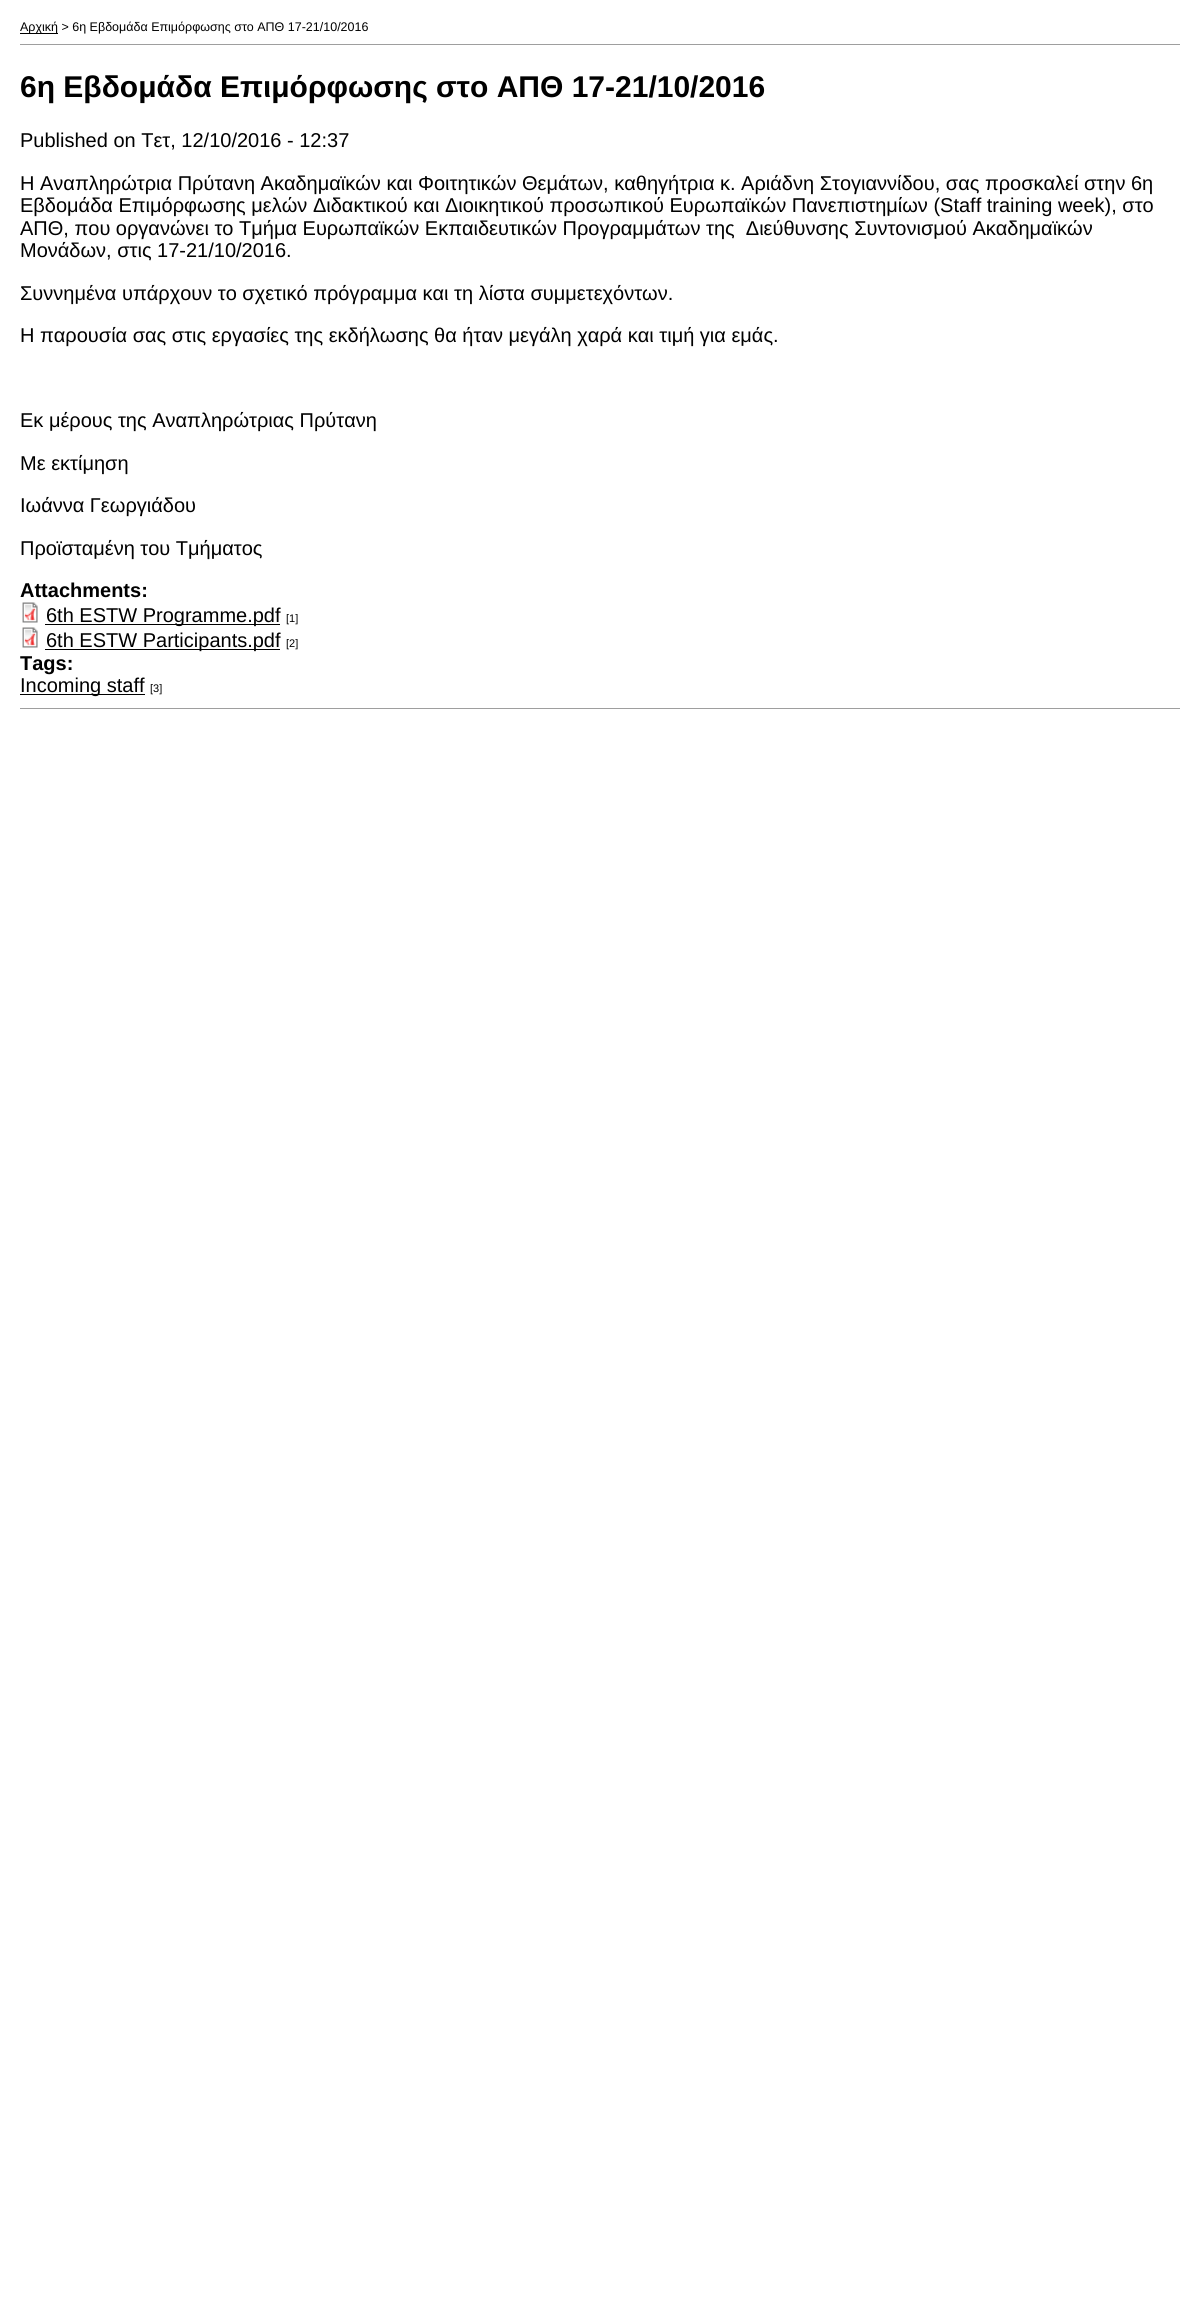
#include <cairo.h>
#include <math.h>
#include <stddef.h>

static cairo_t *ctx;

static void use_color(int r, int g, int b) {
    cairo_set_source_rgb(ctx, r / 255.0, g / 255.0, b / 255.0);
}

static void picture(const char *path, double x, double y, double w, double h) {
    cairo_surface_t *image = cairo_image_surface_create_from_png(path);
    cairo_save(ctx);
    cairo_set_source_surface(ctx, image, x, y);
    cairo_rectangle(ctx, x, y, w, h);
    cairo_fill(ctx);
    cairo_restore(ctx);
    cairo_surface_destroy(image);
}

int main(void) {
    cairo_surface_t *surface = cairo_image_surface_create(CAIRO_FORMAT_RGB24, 1200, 2322);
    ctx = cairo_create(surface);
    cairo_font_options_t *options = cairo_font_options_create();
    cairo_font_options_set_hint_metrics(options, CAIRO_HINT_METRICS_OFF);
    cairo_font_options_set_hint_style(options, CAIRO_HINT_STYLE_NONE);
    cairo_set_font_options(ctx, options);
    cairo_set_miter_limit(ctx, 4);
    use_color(255, 255, 255);
    cairo_paint(ctx);
    use_color(0, 0, 0);
    cairo_rectangle(ctx, 20, 33, 38, 1);
    cairo_fill(ctx);
    cairo_select_font_face(ctx, "Liberation Sans", CAIRO_FONT_SLANT_NORMAL, CAIRO_FONT_WEIGHT_NORMAL);
    cairo_set_font_size(ctx, 12.5);
    cairo_move_to(ctx, 20, 31);
    cairo_show_text(ctx, "Αρχική > 6η Εβδομάδα Επιμόρφωσης στο ΑΠΘ 17-21/10/2016");
    use_color(158, 158, 158);
    cairo_rectangle(ctx, 20, 44, 1160, 1);
    cairo_fill(ctx);
    cairo_select_font_face(ctx, "Liberation Sans", CAIRO_FONT_SLANT_NORMAL, CAIRO_FONT_WEIGHT_BOLD);
    cairo_set_font_size(ctx, 30);
    use_color(0, 0, 0);
    cairo_move_to(ctx, 20, 97);
    cairo_show_text(ctx, "6η Εβδομάδα Επιμόρφωσης στο ΑΠΘ 17-21/10/2016");
    cairo_select_font_face(ctx, "Liberation Sans", CAIRO_FONT_SLANT_NORMAL, CAIRO_FONT_WEIGHT_NORMAL);
    cairo_set_font_size(ctx, 20);
    cairo_move_to(ctx, 20, 147);
    cairo_show_text(ctx, "Published on Τετ, 12/10/2016 - 12:37");
    cairo_move_to(ctx, 20, 190);
    cairo_show_text(ctx, "Η Αναπληρώτρια Πρύτανη Ακαδημαϊκών και Φοιτητικών Θεμάτων, καθηγήτρια κ. Αριάδνη Στογιαννίδου, σας προσκαλεί στην 6η");
    cairo_move_to(ctx, 20, 212);
    cairo_show_text(ctx, "Εβδομάδα Επιμόρφωσης μελών Διδακτικού και Διοικητικού προσωπικού Ευρωπαϊκών Πανεπιστημίων (Staff training week), στο");
    cairo_move_to(ctx, 20, 235);
    cairo_show_text(ctx, "ΑΠΘ, που οργανώνει το Τμήμα Ευρωπαϊκών Εκπαιδευτικών Προγραμμάτων της  Διεύθυνσης Συντονισμού Ακαδημαϊκών");
    cairo_move_to(ctx, 20, 257);
    cairo_show_text(ctx, "Μονάδων, στις 17-21/10/2016.");
    cairo_move_to(ctx, 20, 300);
    cairo_show_text(ctx, "Συννημένα υπάρχουν το σχετικό πρόγραμμα και τη λίστα συμμετεχόντων.");
    cairo_move_to(ctx, 20, 342);
    cairo_show_text(ctx, "Η παρουσία σας στις εργασίες της εκδήλωσης θα ήταν μεγάλη χαρά και τιμή για εμάς.");
    cairo_move_to(ctx, 20, 427);
    cairo_show_text(ctx, "Εκ μέρους της Αναπληρώτριας Πρύτανη");
    cairo_move_to(ctx, 20, 470);
    cairo_show_text(ctx, "Με εκτίμηση");
    cairo_move_to(ctx, 20, 512);
    cairo_show_text(ctx, "Ιωάννα Γεωργιάδου");
    cairo_move_to(ctx, 20, 555);
    cairo_show_text(ctx, "Προϊσταμένη του Τμήματος");
    cairo_select_font_face(ctx, "Liberation Sans", CAIRO_FONT_SLANT_NORMAL, CAIRO_FONT_WEIGHT_BOLD);
    cairo_move_to(ctx, 20, 597);
    cairo_show_text(ctx, "Attachments:");
    picture("img1.png", 22, 602, 16, 21);
    cairo_rectangle(ctx, 45, 624, 235, 1);
    cairo_fill(ctx);
    cairo_select_font_face(ctx, "Liberation Sans", CAIRO_FONT_SLANT_NORMAL, CAIRO_FONT_WEIGHT_NORMAL);
    cairo_move_to(ctx, 46, 622);
    cairo_show_text(ctx, "6th ESTW Programme.pdf");
    cairo_set_font_size(ctx, 11);
    cairo_move_to(ctx, 286, 622);
    cairo_show_text(ctx, "[1]");
    picture("img1.png", 22, 627, 16, 21);
    cairo_rectangle(ctx, 45, 649, 235, 1);
    cairo_fill(ctx);
    cairo_set_font_size(ctx, 20);
    cairo_move_to(ctx, 46, 647);
    cairo_show_text(ctx, "6th ESTW Participants.pdf");
    cairo_set_font_size(ctx, 11);
    cairo_move_to(ctx, 286, 647);
    cairo_show_text(ctx, "[2]");
    cairo_select_font_face(ctx, "Liberation Sans", CAIRO_FONT_SLANT_NORMAL, CAIRO_FONT_WEIGHT_BOLD);
    cairo_set_font_size(ctx, 20);
    cairo_move_to(ctx, 20, 670);
    cairo_show_text(ctx, "Tags:");
    cairo_rectangle(ctx, 20, 694, 125, 1);
    cairo_fill(ctx);
    cairo_select_font_face(ctx, "Liberation Sans", CAIRO_FONT_SLANT_NORMAL, CAIRO_FONT_WEIGHT_NORMAL);
    cairo_move_to(ctx, 20, 692);
    cairo_show_text(ctx, "Incoming staff");
    cairo_set_font_size(ctx, 11);
    cairo_move_to(ctx, 150, 692);
    cairo_show_text(ctx, "[3]");
    use_color(158, 158, 158);
    cairo_rectangle(ctx, 20, 708, 1160, 1);
    cairo_fill(ctx);
    cairo_surface_write_to_png(surface, "result.png");
    cairo_font_options_destroy(options);
    cairo_destroy(ctx);
    cairo_surface_destroy(surface);
    return 0;
}
